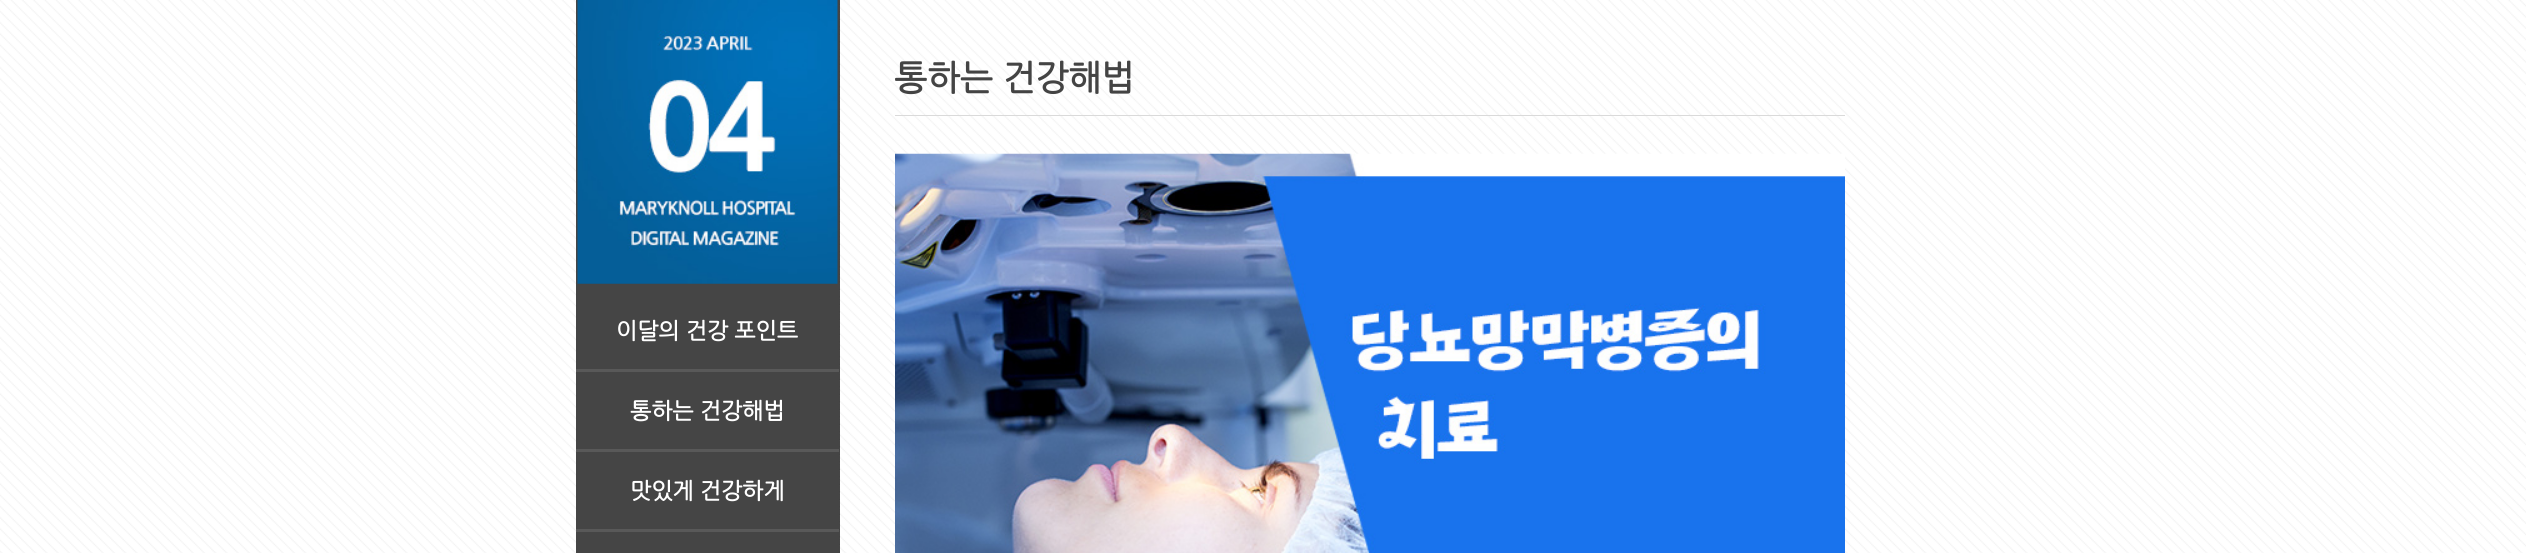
#include <cairo.h>
#include <math.h>
#include <stddef.h>

static cairo_t *ctx;

static void use_color(int r, int g, int b) {
    cairo_set_source_rgb(ctx, r / 255.0, g / 255.0, b / 255.0);
}

static void picture(const char *path, double x, double y, double w, double h) {
    cairo_surface_t *image = cairo_image_surface_create_from_png(path);
    cairo_save(ctx);
    cairo_set_source_surface(ctx, image, x, y);
    cairo_rectangle(ctx, x, y, w, h);
    cairo_fill(ctx);
    cairo_restore(ctx);
    cairo_surface_destroy(image);
}

int main(void) {
    cairo_surface_t *surface = cairo_image_surface_create(CAIRO_FORMAT_RGB24, 2526, 553);
    ctx = cairo_create(surface);
    cairo_font_options_t *options = cairo_font_options_create();
    cairo_font_options_set_hint_metrics(options, CAIRO_HINT_METRICS_OFF);
    cairo_font_options_set_hint_style(options, CAIRO_HINT_STYLE_NONE);
    cairo_set_font_options(ctx, options);
    cairo_set_miter_limit(ctx, 4);
    use_color(255, 255, 255);
    cairo_paint(ctx);
    picture("img1.png", 0, 0, 2526, 553);
    picture("img2.png", 839, 0, 1, 553);
    use_color(218, 218, 218);
    cairo_rectangle(ctx, 895, 115, 950, 1);
    cairo_fill(ctx);
    cairo_select_font_face(ctx, "NanumGothic", CAIRO_FONT_SLANT_NORMAL, CAIRO_FONT_WEIGHT_BOLD);
    cairo_set_font_size(ctx, 35);
    use_color(68, 68, 68);
    cairo_move_to(ctx, 894, 89);
    cairo_show_text(ctx, "통하는 건강해법");
    picture("img3.png", 895, 153, 950, 400);
    use_color(69, 69, 69);
    cairo_rectangle(ctx, 576, 0, 263, 553);
    cairo_fill(ctx);
    picture("img4.png", 577, 0, 261, 284);
    use_color(89, 89, 89);
    cairo_rectangle(ctx, 576, 369, 263, 3);
    cairo_fill(ctx);
    cairo_set_font_size(ctx, 22.5);
    use_color(255, 255, 255);
    cairo_move_to(ctx, 616, 338);
    cairo_show_text(ctx, "이달의 건강 포인트");
    use_color(89, 89, 89);
    cairo_rectangle(ctx, 576, 449, 263, 3);
    cairo_fill(ctx);
    use_color(255, 255, 255);
    cairo_move_to(ctx, 630, 418);
    cairo_show_text(ctx, "통하는 건강해법");
    use_color(89, 89, 89);
    cairo_rectangle(ctx, 576, 529, 263, 3);
    cairo_fill(ctx);
    use_color(255, 255, 255);
    cairo_move_to(ctx, 630, 498);
    cairo_show_text(ctx, "맛있게 건강하게");
    cairo_surface_write_to_png(surface, "result.png");
    cairo_font_options_destroy(options);
    cairo_destroy(ctx);
    cairo_surface_destroy(surface);
    return 0;
}
